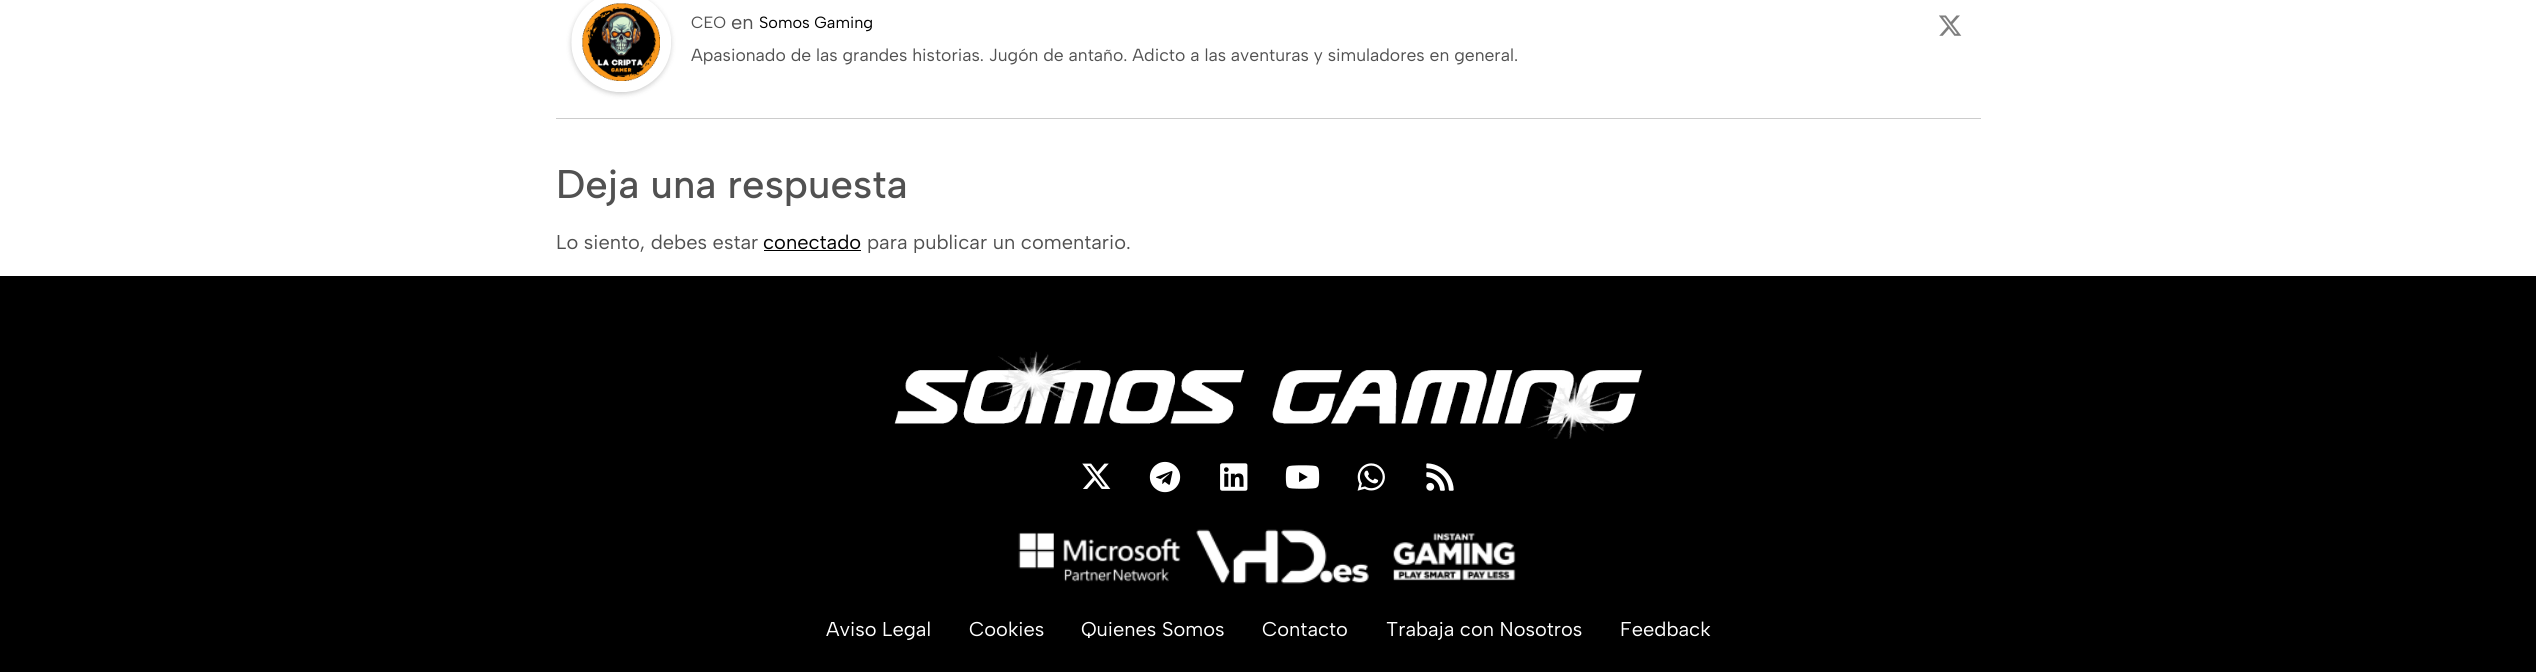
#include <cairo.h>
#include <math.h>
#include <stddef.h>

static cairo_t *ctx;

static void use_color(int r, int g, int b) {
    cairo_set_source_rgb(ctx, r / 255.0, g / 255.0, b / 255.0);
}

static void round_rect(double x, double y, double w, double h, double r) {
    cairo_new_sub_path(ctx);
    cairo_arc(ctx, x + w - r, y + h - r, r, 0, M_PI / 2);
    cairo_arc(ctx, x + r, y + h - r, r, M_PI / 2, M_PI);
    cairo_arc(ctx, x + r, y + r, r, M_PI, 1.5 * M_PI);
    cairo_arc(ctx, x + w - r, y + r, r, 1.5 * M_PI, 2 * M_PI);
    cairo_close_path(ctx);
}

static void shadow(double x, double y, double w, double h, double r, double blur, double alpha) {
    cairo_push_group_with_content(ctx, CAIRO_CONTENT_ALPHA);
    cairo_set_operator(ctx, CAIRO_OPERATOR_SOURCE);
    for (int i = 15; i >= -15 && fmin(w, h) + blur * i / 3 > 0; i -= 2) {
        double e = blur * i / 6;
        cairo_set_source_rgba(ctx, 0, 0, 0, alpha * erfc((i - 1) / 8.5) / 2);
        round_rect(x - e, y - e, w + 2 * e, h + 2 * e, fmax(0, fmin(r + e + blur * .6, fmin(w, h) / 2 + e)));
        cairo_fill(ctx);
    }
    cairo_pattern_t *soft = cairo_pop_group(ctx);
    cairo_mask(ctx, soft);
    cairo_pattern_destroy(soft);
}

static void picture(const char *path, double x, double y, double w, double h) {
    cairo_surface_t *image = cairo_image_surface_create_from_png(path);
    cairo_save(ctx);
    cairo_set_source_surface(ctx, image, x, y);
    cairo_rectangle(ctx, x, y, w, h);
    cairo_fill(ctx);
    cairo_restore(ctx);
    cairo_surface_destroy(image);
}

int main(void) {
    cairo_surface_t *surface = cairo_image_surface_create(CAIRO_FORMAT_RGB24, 2536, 672);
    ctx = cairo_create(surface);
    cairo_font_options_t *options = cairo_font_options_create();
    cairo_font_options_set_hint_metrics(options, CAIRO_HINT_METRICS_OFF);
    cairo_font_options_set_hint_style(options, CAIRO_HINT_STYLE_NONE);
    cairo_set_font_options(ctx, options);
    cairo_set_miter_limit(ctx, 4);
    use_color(255, 255, 255);
    cairo_paint(ctx);
    use_color(204, 204, 204);
    cairo_rectangle(ctx, 556, 118, 1425, 1);
    cairo_fill(ctx);
    use_color(0, 0, 0);
    shadow(571, -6, 100, 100, 50, 2.5, 0.2);
    picture("img1.png", 571, 0, 100, 92);
    cairo_select_font_face(ctx, "Albert Sans", CAIRO_FONT_SLANT_NORMAL, CAIRO_FONT_WEIGHT_NORMAL);
    cairo_set_font_size(ctx, 16.25);
    use_color(81, 81, 81);
    cairo_move_to(ctx, 691, 28);
    cairo_show_text(ctx, "CEO");
    cairo_set_font_size(ctx, 20);
    cairo_move_to(ctx, 731, 29);
    cairo_show_text(ctx, "en");
    cairo_set_font_size(ctx, 16.25);
    use_color(0, 0, 0);
    cairo_move_to(ctx, 759, 28);
    cairo_show_text(ctx, "Somos Gaming");
    cairo_set_font_size(ctx, 17.5);
    use_color(81, 81, 81);
    cairo_move_to(ctx, 691, 61);
    cairo_show_text(ctx, "Apasionado de las grandes historias. Jugón de antaño. Adicto a las aventuras y simuladores en general.");
    picture("img2.png", 1939, 15, 23, 21);
    cairo_select_font_face(ctx, "Albert Sans Medium", CAIRO_FONT_SLANT_NORMAL, CAIRO_FONT_WEIGHT_NORMAL);
    cairo_set_font_size(ctx, 40);
    cairo_move_to(ctx, 556, 198);
    cairo_show_text(ctx, "Deja una respuesta");
    cairo_select_font_face(ctx, "Albert Sans", CAIRO_FONT_SLANT_NORMAL, CAIRO_FONT_WEIGHT_NORMAL);
    cairo_set_font_size(ctx, 20);
    cairo_move_to(ctx, 556, 249);
    cairo_show_text(ctx, "Lo siento, debes estar");
    use_color(0, 0, 0);
    cairo_move_to(ctx, 763, 249);
    cairo_show_text(ctx, "conectado");
    cairo_rectangle(ctx, 764, 250, 97, 1);
    cairo_fill(ctx);
    use_color(81, 81, 81);
    cairo_move_to(ctx, 867, 249);
    cairo_show_text(ctx, "para publicar un comentario.");
    use_color(0, 0, 0);
    cairo_rectangle(ctx, 0, 276, 2536, 396);
    cairo_fill(ctx);
    picture("img3.png", 894, 351, 749, 88);
    picture("img4.png", 1082, 463, 29, 26);
    picture("img5.png", 1149, 461, 32, 32);
    picture("img6.png", 1220, 463, 28, 28);
    picture("img7.png", 1285, 465, 35, 24);
    picture("img8.png", 1357, 463, 28, 28);
    picture("img9.png", 1426, 463, 28, 28);
    picture("img10.png", 1018, 532, 163, 50);
    picture("img11.png", 1196, 529, 173, 55);
    picture("img12.png", 1393, 533, 123, 48);
    use_color(255, 255, 255);
    cairo_move_to(ctx, 826, 636);
    cairo_show_text(ctx, "Aviso Legal");
    cairo_move_to(ctx, 969, 636);
    cairo_show_text(ctx, "Cookies");
    cairo_move_to(ctx, 1081, 636);
    cairo_show_text(ctx, "Quienes Somos");
    cairo_move_to(ctx, 1262, 636);
    cairo_show_text(ctx, "Contacto");
    cairo_move_to(ctx, 1386, 636);
    cairo_show_text(ctx, "Trabaja con Nosotros");
    cairo_move_to(ctx, 1620, 636);
    cairo_show_text(ctx, "Feedback");
    cairo_surface_write_to_png(surface, "result.png");
    cairo_font_options_destroy(options);
    cairo_destroy(ctx);
    cairo_surface_destroy(surface);
    return 0;
}
